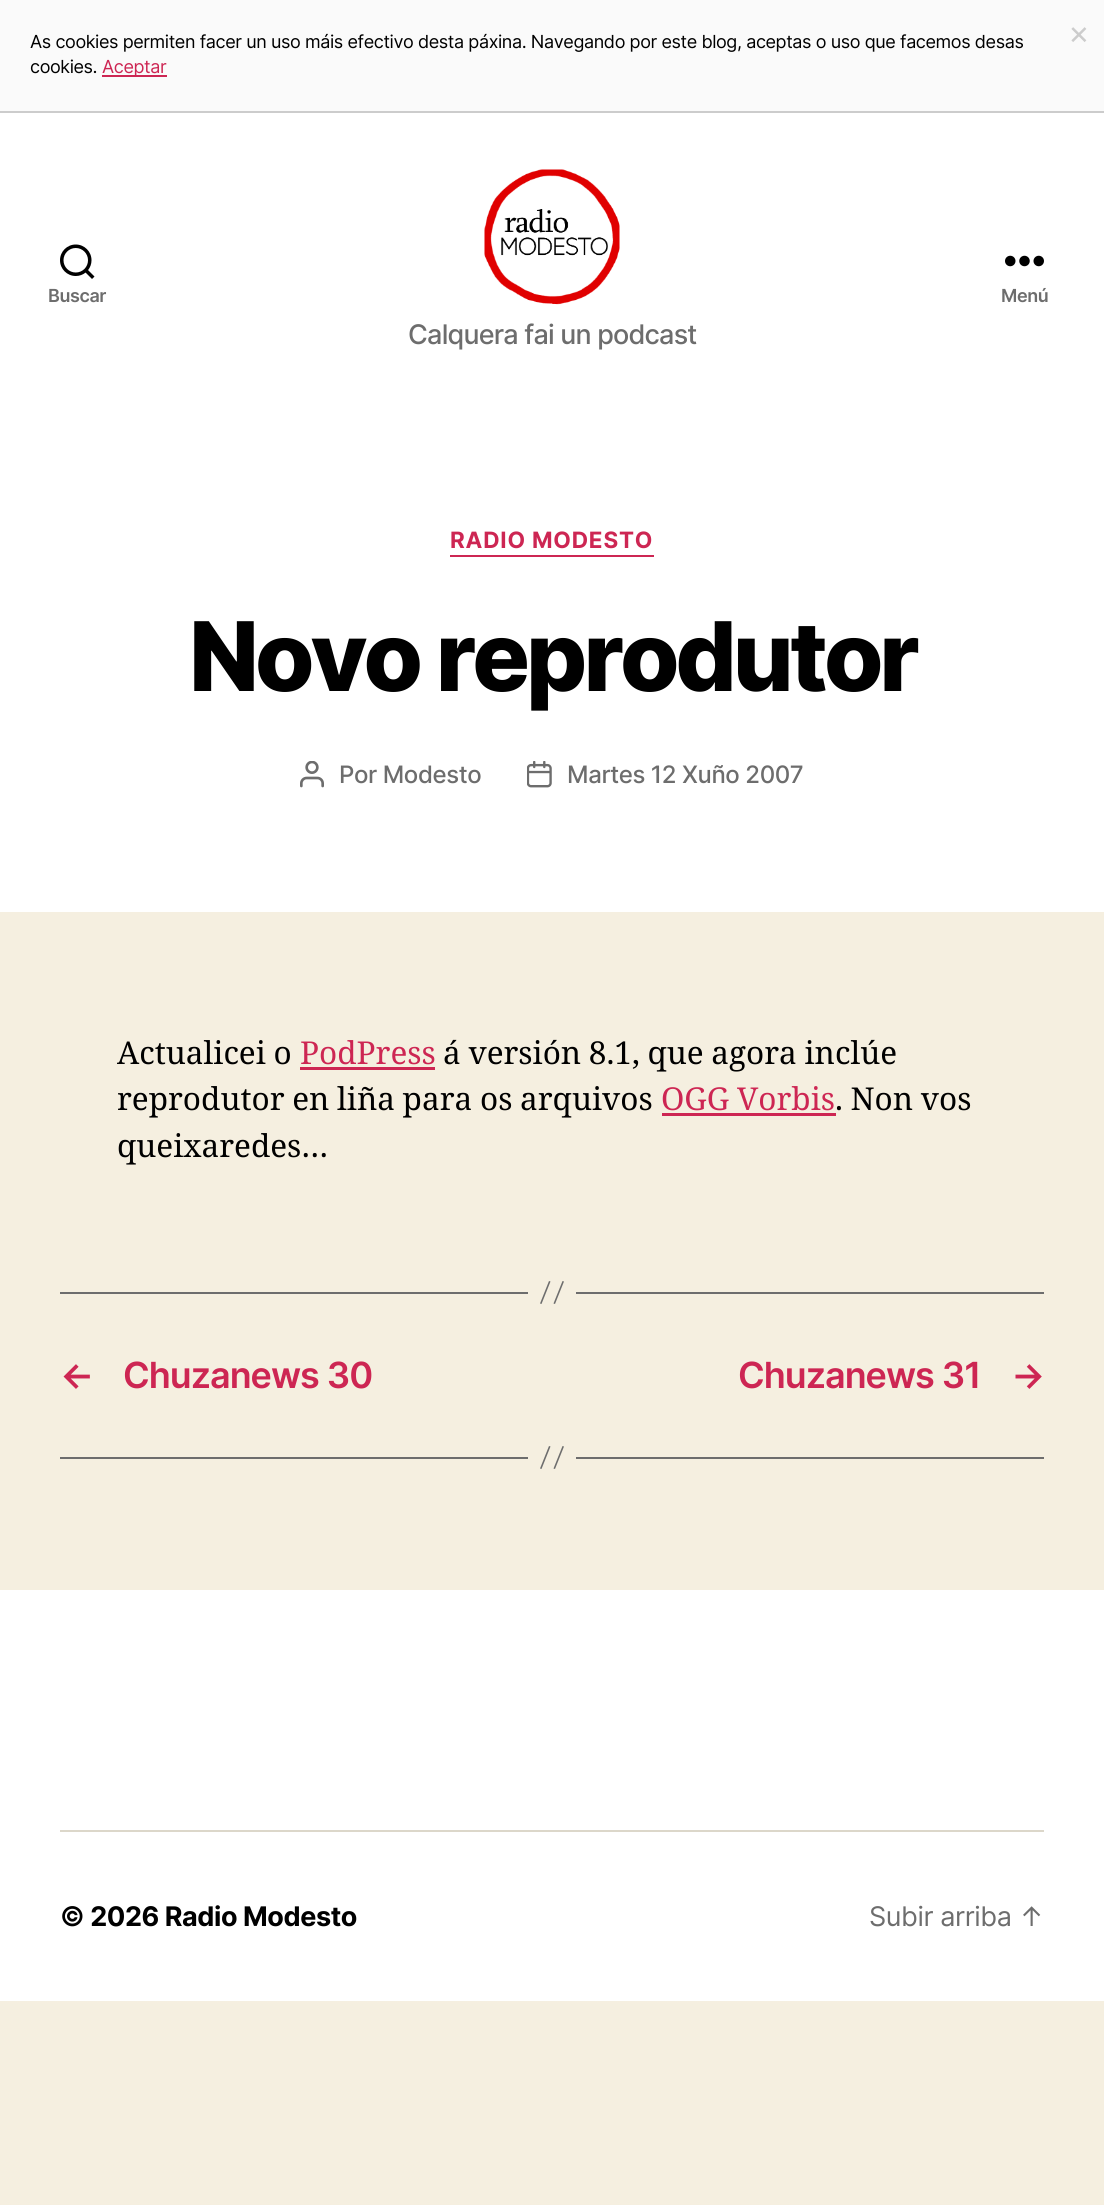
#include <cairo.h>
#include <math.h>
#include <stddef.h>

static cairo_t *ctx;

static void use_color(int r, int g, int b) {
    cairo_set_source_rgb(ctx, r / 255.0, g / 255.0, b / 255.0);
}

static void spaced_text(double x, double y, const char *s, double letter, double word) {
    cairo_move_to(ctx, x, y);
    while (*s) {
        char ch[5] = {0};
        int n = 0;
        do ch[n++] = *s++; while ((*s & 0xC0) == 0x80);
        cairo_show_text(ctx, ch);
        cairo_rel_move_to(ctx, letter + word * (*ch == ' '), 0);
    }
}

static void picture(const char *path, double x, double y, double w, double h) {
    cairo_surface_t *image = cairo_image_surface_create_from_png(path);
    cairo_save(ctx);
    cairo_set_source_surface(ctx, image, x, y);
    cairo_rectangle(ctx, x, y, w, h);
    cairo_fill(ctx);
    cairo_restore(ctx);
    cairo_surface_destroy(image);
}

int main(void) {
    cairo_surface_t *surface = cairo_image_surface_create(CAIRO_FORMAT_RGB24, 1104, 2205);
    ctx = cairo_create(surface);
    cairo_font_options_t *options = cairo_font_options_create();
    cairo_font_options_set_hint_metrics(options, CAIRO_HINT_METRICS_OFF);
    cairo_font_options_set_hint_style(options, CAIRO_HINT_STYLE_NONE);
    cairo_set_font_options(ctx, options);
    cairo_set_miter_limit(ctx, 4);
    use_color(245, 239, 224);
    cairo_paint(ctx);
    use_color(250, 250, 250);
    cairo_rectangle(ctx, 0, 0, 1104, 111);
    cairo_fill(ctx);
    use_color(204, 204, 204);
    cairo_rectangle(ctx, 0, 111, 1104, 2);
    cairo_fill(ctx);
    cairo_select_font_face(ctx, "Inter", CAIRO_FONT_SLANT_NORMAL, CAIRO_FONT_WEIGHT_NORMAL);
    cairo_set_font_size(ctx, 18);
    use_color(0, 0, 0);
    spaced_text(30, 48, "As cookies permiten facer un uso máis efectivo desta páxina. Navegando por este blog, aceptas o uso que facemos desas", -0.41, 0);
    cairo_set_font_size(ctx, 33);
    use_color(204, 204, 204);
    spaced_text(1068, 44, "×", -0.41, 0);
    cairo_set_font_size(ctx, 18);
    use_color(0, 0, 0);
    spaced_text(30, 73, "cookies.", -0.41, 0);
    use_color(205, 38, 83);
    cairo_rectangle(ctx, 102, 75, 65, 2);
    cairo_fill(ctx);
    spaced_text(102, 73, "Aceptar", -0.41, 0);
    use_color(255, 255, 255);
    cairo_rectangle(ctx, 0, 113, 1104, 799);
    cairo_fill(ctx);
    picture("img1.png", 60, 244, 35, 35);
    cairo_select_font_face(ctx, "Inter SemiBold", CAIRO_FONT_SLANT_NORMAL, CAIRO_FONT_WEIGHT_NORMAL);
    use_color(109, 109, 109);
    spaced_text(48, 302, "Buscar", -0.41, 0);
    picture("img2.png", 1005, 255, 39, 12);
    spaced_text(1001, 302, "Menú", -0.41, 0);
    picture("img3.png", 484, 169, 136, 136);
    cairo_select_font_face(ctx, "Inter Medium", CAIRO_FONT_SLANT_NORMAL, CAIRO_FONT_WEIGHT_NORMAL);
    cairo_set_font_size(ctx, 27);
    spaced_text(408, 344, "Calquera fai un podcast", -0.8, 0);
    use_color(205, 38, 83);
    cairo_rectangle(ctx, 450, 555, 204, 2);
    cairo_fill(ctx);
    cairo_select_font_face(ctx, "Inter", CAIRO_FONT_SLANT_NORMAL, CAIRO_FONT_WEIGHT_BOLD);
    cairo_set_font_size(ctx, 22.5);
    spaced_text(450, 548, "RADIO MODESTO", 0.8, 0);
    cairo_select_font_face(ctx, "Inter ExtraBold", CAIRO_FONT_SLANT_NORMAL, CAIRO_FONT_WEIGHT_NORMAL);
    cairo_set_font_size(ctx, 96);
    use_color(0, 0, 0);
    spaced_text(189, 691, "Novo reprodutor", -4, 0);
    picture("img4.png", 300, 761, 24, 27);
    cairo_select_font_face(ctx, "Inter Medium", CAIRO_FONT_SLANT_NORMAL, CAIRO_FONT_WEIGHT_NORMAL);
    cairo_set_font_size(ctx, 24);
    use_color(109, 109, 109);
    spaced_text(339, 783, "Por Modesto", -0.41, 0);
    picture("img5.png", 527, 761, 25, 27);
    spaced_text(567, 783, "Martes 12 Xuño 2007", -0.41, 0);
    cairo_select_font_face(ctx, "Noto Serif", CAIRO_FONT_SLANT_NORMAL, CAIRO_FONT_WEIGHT_NORMAL);
    cairo_set_font_size(ctx, 31.5);
    use_color(0, 0, 0);
    spaced_text(117, 1064, "Actualicei o", 0, -0.5);
    use_color(205, 38, 83);
    cairo_move_to(ctx, 300, 1064);
    cairo_show_text(ctx, "PodPress");
    cairo_rectangle(ctx, 300, 1067, 135, 3);
    cairo_fill(ctx);
    use_color(0, 0, 0);
    spaced_text(443, 1064, "á versión 8.1, que agora inclúe", 0, -0.5);
    spaced_text(117, 1110, "reprodutor en liña para os arquivos", 0, -0.5);
    use_color(205, 38, 83);
    spaced_text(661, 1110, "OGG Vorbis", 0, -0.5);
    cairo_rectangle(ctx, 662, 1113, 174, 3);
    cairo_fill(ctx);
    use_color(0, 0, 0);
    spaced_text(835, 1110, ". Non vos", 0, -0.5);
    cairo_move_to(ctx, 117, 1157);
    cairo_show_text(ctx, "queixaredes…");
    use_color(109, 109, 109);
    cairo_rectangle(ctx, 576, 1292, 468, 2);
    cairo_fill(ctx);
    cairo_rectangle(ctx, 60, 1292, 468, 2);
    cairo_fill(ctx);
    cairo_new_path(ctx);
    cairo_move_to(ctx, 549, 1281);
    cairo_line_to(ctx, 550.5, 1281.5);
    cairo_line_to(ctx, 541.5, 1304);
    cairo_line_to(ctx, 540, 1303.5);
    cairo_close_path(ctx);
    cairo_move_to(ctx, 562.5, 1281);
    cairo_line_to(ctx, 564, 1281.5);
    cairo_line_to(ctx, 555, 1304);
    cairo_line_to(ctx, 553.5, 1303.5);
    cairo_close_path(ctx);
    cairo_fill(ctx);
    cairo_select_font_face(ctx, "Inter SemiBold", CAIRO_FONT_SLANT_NORMAL, CAIRO_FONT_WEIGHT_NORMAL);
    cairo_set_font_size(ctx, 36);
    use_color(205, 38, 83);
    spaced_text(60, 1388, "←", -1, 0);
    spaced_text(123, 1388, "Chuzanews 30", -1, 0);
    spaced_text(738, 1388, "Chuzanews 31", -1, 0);
    spaced_text(1011, 1388, "→", -1, 0);
    use_color(109, 109, 109);
    cairo_rectangle(ctx, 576, 1457, 468, 2);
    cairo_fill(ctx);
    cairo_rectangle(ctx, 60, 1457, 468, 2);
    cairo_fill(ctx);
    cairo_new_path(ctx);
    cairo_move_to(ctx, 549, 1446);
    cairo_line_to(ctx, 550.5, 1446.5);
    cairo_line_to(ctx, 541.5, 1469);
    cairo_line_to(ctx, 540, 1468.5);
    cairo_close_path(ctx);
    cairo_move_to(ctx, 562.5, 1446);
    cairo_line_to(ctx, 564, 1446.5);
    cairo_line_to(ctx, 555, 1469);
    cairo_line_to(ctx, 553.5, 1468.5);
    cairo_close_path(ctx);
    cairo_fill(ctx);
    use_color(255, 255, 255);
    cairo_rectangle(ctx, 0, 1590, 1104, 411);
    cairo_fill(ctx);
    use_color(220, 215, 202);
    cairo_rectangle(ctx, 60, 1830, 984, 2);
    cairo_fill(ctx);
    cairo_select_font_face(ctx, "Inter", CAIRO_FONT_SLANT_NORMAL, CAIRO_FONT_WEIGHT_BOLD);
    cairo_set_font_size(ctx, 27);
    use_color(0, 0, 0);
    spaced_text(60, 1926, "© 2026 Radio Modesto", -0.41, 0);
    cairo_select_font_face(ctx, "Inter", CAIRO_FONT_SLANT_NORMAL, CAIRO_FONT_WEIGHT_NORMAL);
    use_color(109, 109, 109);
    spaced_text(869, 1926, "Subir arriba ↑", -0.41, 0);
    cairo_surface_write_to_png(surface, "result.png");
    cairo_font_options_destroy(options);
    cairo_destroy(ctx);
    cairo_surface_destroy(surface);
    return 0;
}
